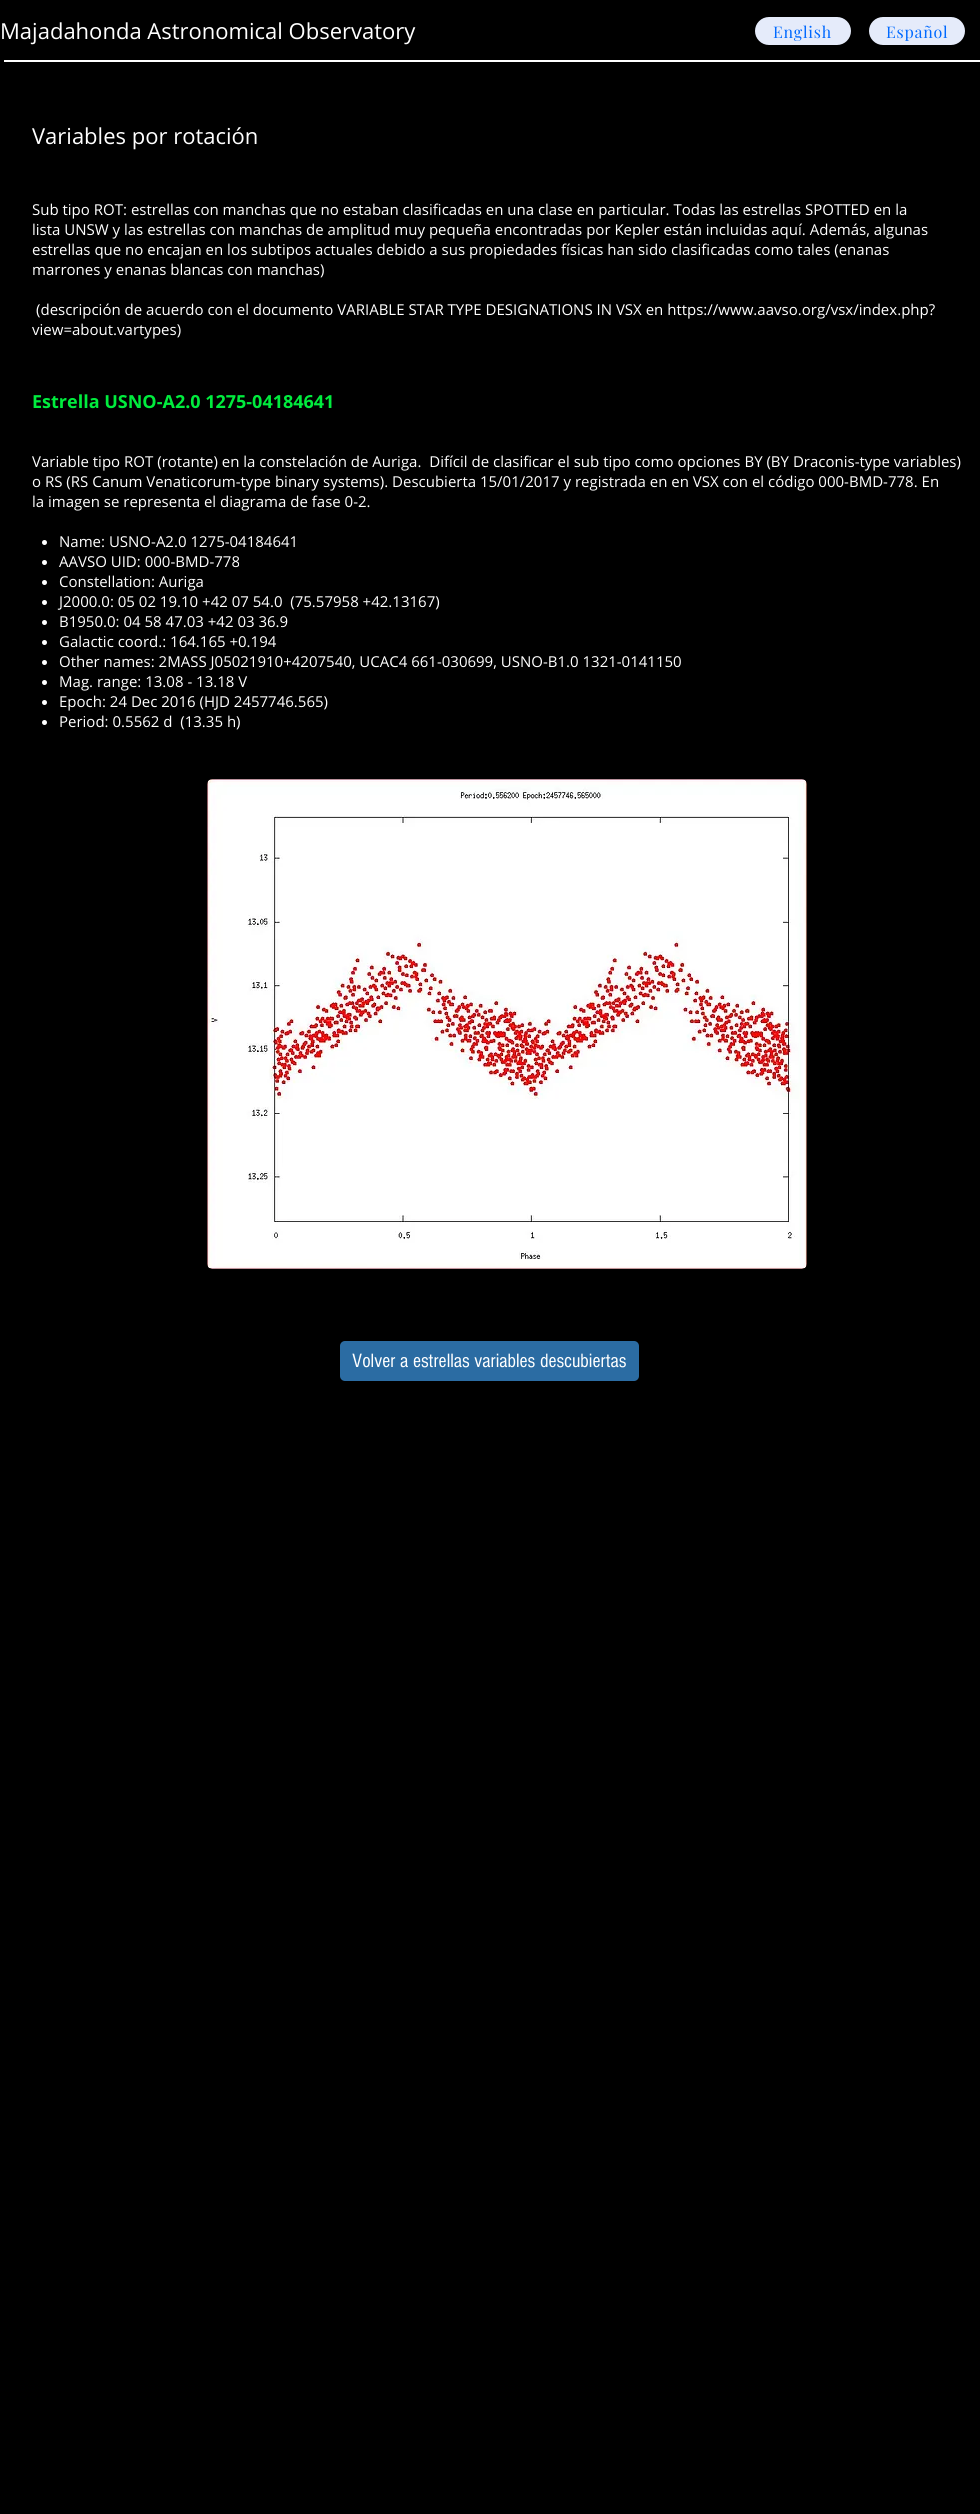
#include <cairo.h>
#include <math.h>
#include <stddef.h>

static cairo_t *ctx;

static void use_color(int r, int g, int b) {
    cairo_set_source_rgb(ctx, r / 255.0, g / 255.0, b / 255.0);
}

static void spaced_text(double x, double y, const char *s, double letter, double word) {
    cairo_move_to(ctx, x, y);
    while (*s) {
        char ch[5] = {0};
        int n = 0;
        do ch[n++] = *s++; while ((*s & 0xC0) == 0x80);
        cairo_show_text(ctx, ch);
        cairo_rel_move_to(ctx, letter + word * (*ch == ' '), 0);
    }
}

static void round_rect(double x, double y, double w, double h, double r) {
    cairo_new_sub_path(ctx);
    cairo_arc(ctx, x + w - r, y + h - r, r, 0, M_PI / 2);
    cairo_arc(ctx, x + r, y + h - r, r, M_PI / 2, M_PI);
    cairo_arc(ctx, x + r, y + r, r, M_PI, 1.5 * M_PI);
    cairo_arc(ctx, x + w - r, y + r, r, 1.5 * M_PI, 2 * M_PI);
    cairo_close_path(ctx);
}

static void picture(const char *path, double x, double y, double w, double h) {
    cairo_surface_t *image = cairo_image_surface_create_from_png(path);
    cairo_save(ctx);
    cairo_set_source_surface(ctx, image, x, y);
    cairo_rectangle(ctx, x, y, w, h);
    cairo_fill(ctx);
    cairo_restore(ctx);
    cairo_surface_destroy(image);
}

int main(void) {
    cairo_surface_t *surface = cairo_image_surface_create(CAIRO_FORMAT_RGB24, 980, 2514);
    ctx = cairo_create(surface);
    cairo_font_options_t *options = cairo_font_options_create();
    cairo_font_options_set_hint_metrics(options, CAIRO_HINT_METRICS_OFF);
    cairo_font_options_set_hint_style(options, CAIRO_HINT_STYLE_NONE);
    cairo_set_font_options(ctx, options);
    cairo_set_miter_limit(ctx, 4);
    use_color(0, 0, 0);
    cairo_paint(ctx);
    cairo_select_font_face(ctx, "Open Sans", CAIRO_FONT_SLANT_NORMAL, CAIRO_FONT_WEIGHT_NORMAL);
    cairo_set_font_size(ctx, 22);
    use_color(255, 255, 255);
    cairo_move_to(ctx, 0, 39);
    cairo_show_text(ctx, "Majadahonda Astronomical Observatory");
    use_color(229, 235, 250);
    round_rect(755, 17, 96, 28, 14);
    cairo_fill(ctx);
    cairo_select_font_face(ctx, "Playfair Display", CAIRO_FONT_SLANT_NORMAL, CAIRO_FONT_WEIGHT_NORMAL);
    cairo_set_font_size(ctx, 16);
    use_color(0, 105, 255);
    spaced_text(773, 38, "English", 0.75, 0);
    use_color(229, 235, 250);
    round_rect(869, 17, 96, 28, 14);
    cairo_fill(ctx);
    use_color(0, 105, 255);
    spaced_text(886, 38, "Español", 0.75, 0);
    use_color(255, 255, 255);
    cairo_rectangle(ctx, 4, 60, 976, 2);
    cairo_fill(ctx);
    cairo_select_font_face(ctx, "Open Sans", CAIRO_FONT_SLANT_NORMAL, CAIRO_FONT_WEIGHT_NORMAL);
    cairo_set_font_size(ctx, 22);
    cairo_move_to(ctx, 32, 144);
    cairo_show_text(ctx, "Variables por rotación");
    cairo_set_font_size(ctx, 15);
    cairo_move_to(ctx, 32, 215);
    cairo_show_text(ctx, "Sub tipo ROT: estrellas con manchas que no estaban clasificadas en una clase en particular. Todas las estrellas SPOTTED en la");
    cairo_move_to(ctx, 32, 235);
    cairo_show_text(ctx, "lista UNSW y las estrellas con manchas de amplitud muy pequeña encontradas por Kepler están incluidas aquí. Además, algunas");
    cairo_move_to(ctx, 32, 255);
    cairo_show_text(ctx, "estrellas que no encajan en los subtipos actuales debido a sus propiedades físicas han sido clasificadas como tales (enanas");
    cairo_move_to(ctx, 32, 275);
    cairo_show_text(ctx, "marrones y enanas blancas con manchas)");
    cairo_move_to(ctx, 36, 315);
    cairo_show_text(ctx, "(descripción de acuerdo con el documento VARIABLE STAR TYPE DESIGNATIONS IN VSX en https://www.aavso.org/vsx/index.php?");
    cairo_move_to(ctx, 32, 335);
    cairo_show_text(ctx, "view=about.vartypes)");
    cairo_select_font_face(ctx, "Open Sans", CAIRO_FONT_SLANT_NORMAL, CAIRO_FONT_WEIGHT_BOLD);
    cairo_set_font_size(ctx, 18);
    use_color(0, 236, 61);
    cairo_move_to(ctx, 32, 408);
    cairo_show_text(ctx, "Estrella USNO-A2.0 1275-04184641");
    cairo_select_font_face(ctx, "Open Sans", CAIRO_FONT_SLANT_NORMAL, CAIRO_FONT_WEIGHT_NORMAL);
    cairo_set_font_size(ctx, 15);
    use_color(255, 255, 255);
    cairo_move_to(ctx, 32, 467);
    cairo_show_text(ctx, "Variable tipo ROT (rotante) en la constelación de Auriga.  Difícil de clasificar el sub tipo como opciones BY (BY Draconis-type variables)");
    cairo_move_to(ctx, 32, 487);
    cairo_show_text(ctx, "o RS (RS Canum Venaticorum-type binary systems). Descubierta 15/01/2017 y registrada en en VSX con el código 000-BMD-778. En");
    cairo_move_to(ctx, 32, 507);
    cairo_show_text(ctx, "la imagen se representa el diagrama de fase 0-2.");
    cairo_new_path(ctx);
    cairo_arc(ctx, 44.5, 542.5, 2.5, 0, 2 * M_PI);
    cairo_fill(ctx);
    cairo_move_to(ctx, 59, 547);
    cairo_show_text(ctx, "Name: USNO-A2.0 1275-04184641");
    cairo_new_path(ctx);
    cairo_arc(ctx, 44.5, 562.5, 2.5, 0, 2 * M_PI);
    cairo_fill(ctx);
    cairo_move_to(ctx, 59, 567);
    cairo_show_text(ctx, "AAVSO UID: 000-BMD-778");
    cairo_new_path(ctx);
    cairo_arc(ctx, 44.5, 582.5, 2.5, 0, 2 * M_PI);
    cairo_fill(ctx);
    cairo_move_to(ctx, 59, 587);
    cairo_show_text(ctx, "Constellation: Auriga");
    cairo_new_path(ctx);
    cairo_arc(ctx, 44.5, 602.5, 2.5, 0, 2 * M_PI);
    cairo_fill(ctx);
    cairo_move_to(ctx, 59, 607);
    cairo_show_text(ctx, "J2000.0: 05 02 19.10 +42 07 54.0  (75.57958 +42.13167)");
    cairo_new_path(ctx);
    cairo_arc(ctx, 44.5, 622.5, 2.5, 0, 2 * M_PI);
    cairo_fill(ctx);
    cairo_move_to(ctx, 59, 627);
    cairo_show_text(ctx, "B1950.0: 04 58 47.03 +42 03 36.9");
    cairo_new_path(ctx);
    cairo_arc(ctx, 44.5, 642.5, 2.5, 0, 2 * M_PI);
    cairo_fill(ctx);
    cairo_move_to(ctx, 59, 647);
    cairo_show_text(ctx, "Galactic coord.: 164.165 +0.194");
    cairo_new_path(ctx);
    cairo_arc(ctx, 44.5, 662.5, 2.5, 0, 2 * M_PI);
    cairo_fill(ctx);
    cairo_move_to(ctx, 59, 667);
    cairo_show_text(ctx, "Other names: 2MASS J05021910+4207540, UCAC4 661-030699, USNO-B1.0 1321-0141150");
    cairo_new_path(ctx);
    cairo_arc(ctx, 44.5, 682.5, 2.5, 0, 2 * M_PI);
    cairo_fill(ctx);
    cairo_move_to(ctx, 59, 687);
    cairo_show_text(ctx, "Mag. range: 13.08 - 13.18 V");
    cairo_new_path(ctx);
    cairo_arc(ctx, 44.5, 702.5, 2.5, 0, 2 * M_PI);
    cairo_fill(ctx);
    cairo_move_to(ctx, 59, 707);
    cairo_show_text(ctx, "Epoch: 24 Dec 2016 (HJD 2457746.565)");
    cairo_new_path(ctx);
    cairo_arc(ctx, 44.5, 722.5, 2.5, 0, 2 * M_PI);
    cairo_fill(ctx);
    cairo_move_to(ctx, 59, 727);
    cairo_show_text(ctx, "Period: 0.5562 d  (13.35 h)");
    picture("img1.png", 207, 779, 600, 490);
    use_color(43, 108, 163);
    round_rect(340, 1341, 299, 40, 5);
    cairo_fill(ctx);
    cairo_select_font_face(ctx, "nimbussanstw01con", CAIRO_FONT_SLANT_NORMAL, CAIRO_FONT_WEIGHT_NORMAL);
    cairo_set_font_size(ctx, 20);
    use_color(255, 255, 255);
    cairo_move_to(ctx, 352, 1367);
    cairo_show_text(ctx, "Volver a estrellas variables descubiertas");
    cairo_surface_write_to_png(surface, "result.png");
    cairo_font_options_destroy(options);
    cairo_destroy(ctx);
    cairo_surface_destroy(surface);
    return 0;
}
